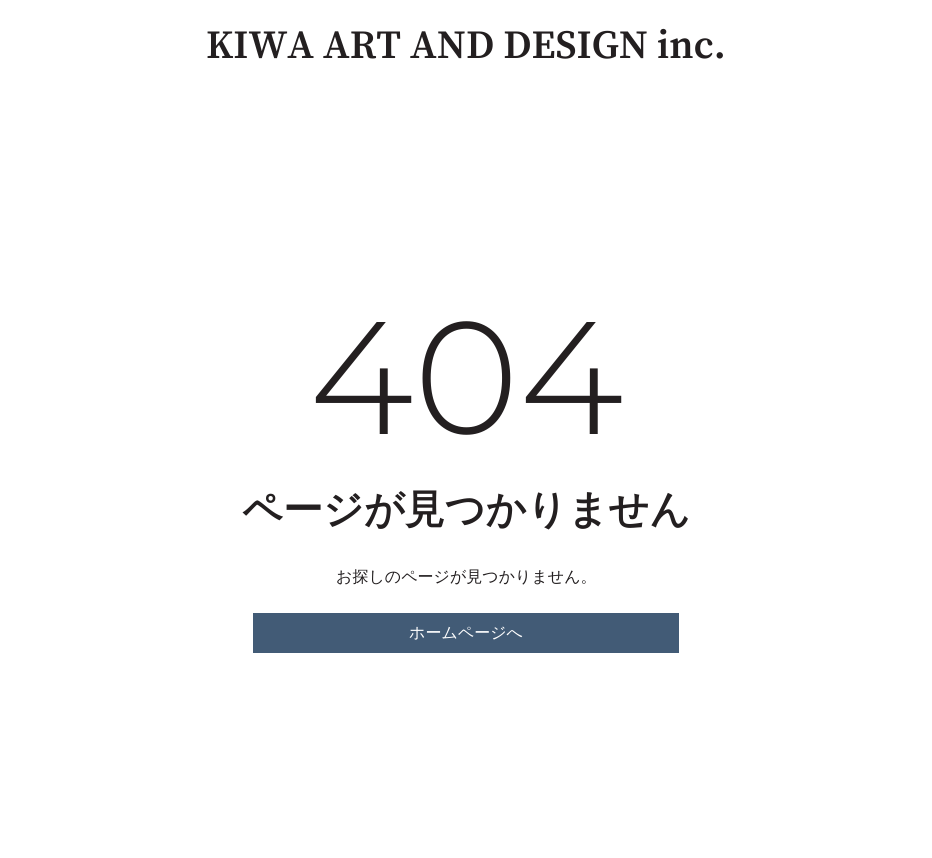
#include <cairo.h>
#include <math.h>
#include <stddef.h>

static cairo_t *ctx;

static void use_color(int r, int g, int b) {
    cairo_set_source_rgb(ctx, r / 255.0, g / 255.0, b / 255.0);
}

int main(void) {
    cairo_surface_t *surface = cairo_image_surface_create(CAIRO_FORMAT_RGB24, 932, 858);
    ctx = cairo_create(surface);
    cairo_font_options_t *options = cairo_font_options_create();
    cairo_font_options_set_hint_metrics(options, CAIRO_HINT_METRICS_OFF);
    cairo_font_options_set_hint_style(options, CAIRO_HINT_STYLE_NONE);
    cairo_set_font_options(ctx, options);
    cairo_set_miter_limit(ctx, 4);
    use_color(255, 255, 255);
    cairo_paint(ctx);
    cairo_select_font_face(ctx, "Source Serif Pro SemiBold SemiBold", CAIRO_FONT_SLANT_NORMAL, CAIRO_FONT_WEIGHT_NORMAL);
    cairo_set_font_size(ctx, 40);
    use_color(35, 31, 32);
    cairo_move_to(ctx, 206, 58);
    cairo_show_text(ctx, "KIWA ART AND DESIGN inc.");
    cairo_select_font_face(ctx, "Montserrat Light", CAIRO_FONT_SLANT_NORMAL, CAIRO_FONT_WEIGHT_NORMAL);
    cairo_set_font_size(ctx, 160);
    cairo_move_to(ctx, 309, 434);
    cairo_show_text(ctx, "404");
    cairo_select_font_face(ctx, "WenQuanYi Zen Hei", CAIRO_FONT_SLANT_NORMAL, CAIRO_FONT_WEIGHT_BOLD);
    cairo_set_font_size(ctx, 40);
    cairo_move_to(ctx, 242, 523);
    cairo_show_text(ctx, "ページが見つかりません");
    cairo_select_font_face(ctx, "WenQuanYi Zen Hei Medium", CAIRO_FONT_SLANT_NORMAL, CAIRO_FONT_WEIGHT_NORMAL);
    cairo_set_font_size(ctx, 16);
    cairo_move_to(ctx, 336, 582);
    cairo_show_text(ctx, "お探しのページが見つかりません。");
    use_color(66, 91, 118);
    cairo_rectangle(ctx, 253, 613, 426, 40);
    cairo_fill(ctx);
    use_color(255, 255, 255);
    cairo_move_to(ctx, 409, 638);
    cairo_show_text(ctx, "ホームページへ");
    cairo_surface_write_to_png(surface, "result.png");
    cairo_font_options_destroy(options);
    cairo_destroy(ctx);
    cairo_surface_destroy(surface);
    return 0;
}
